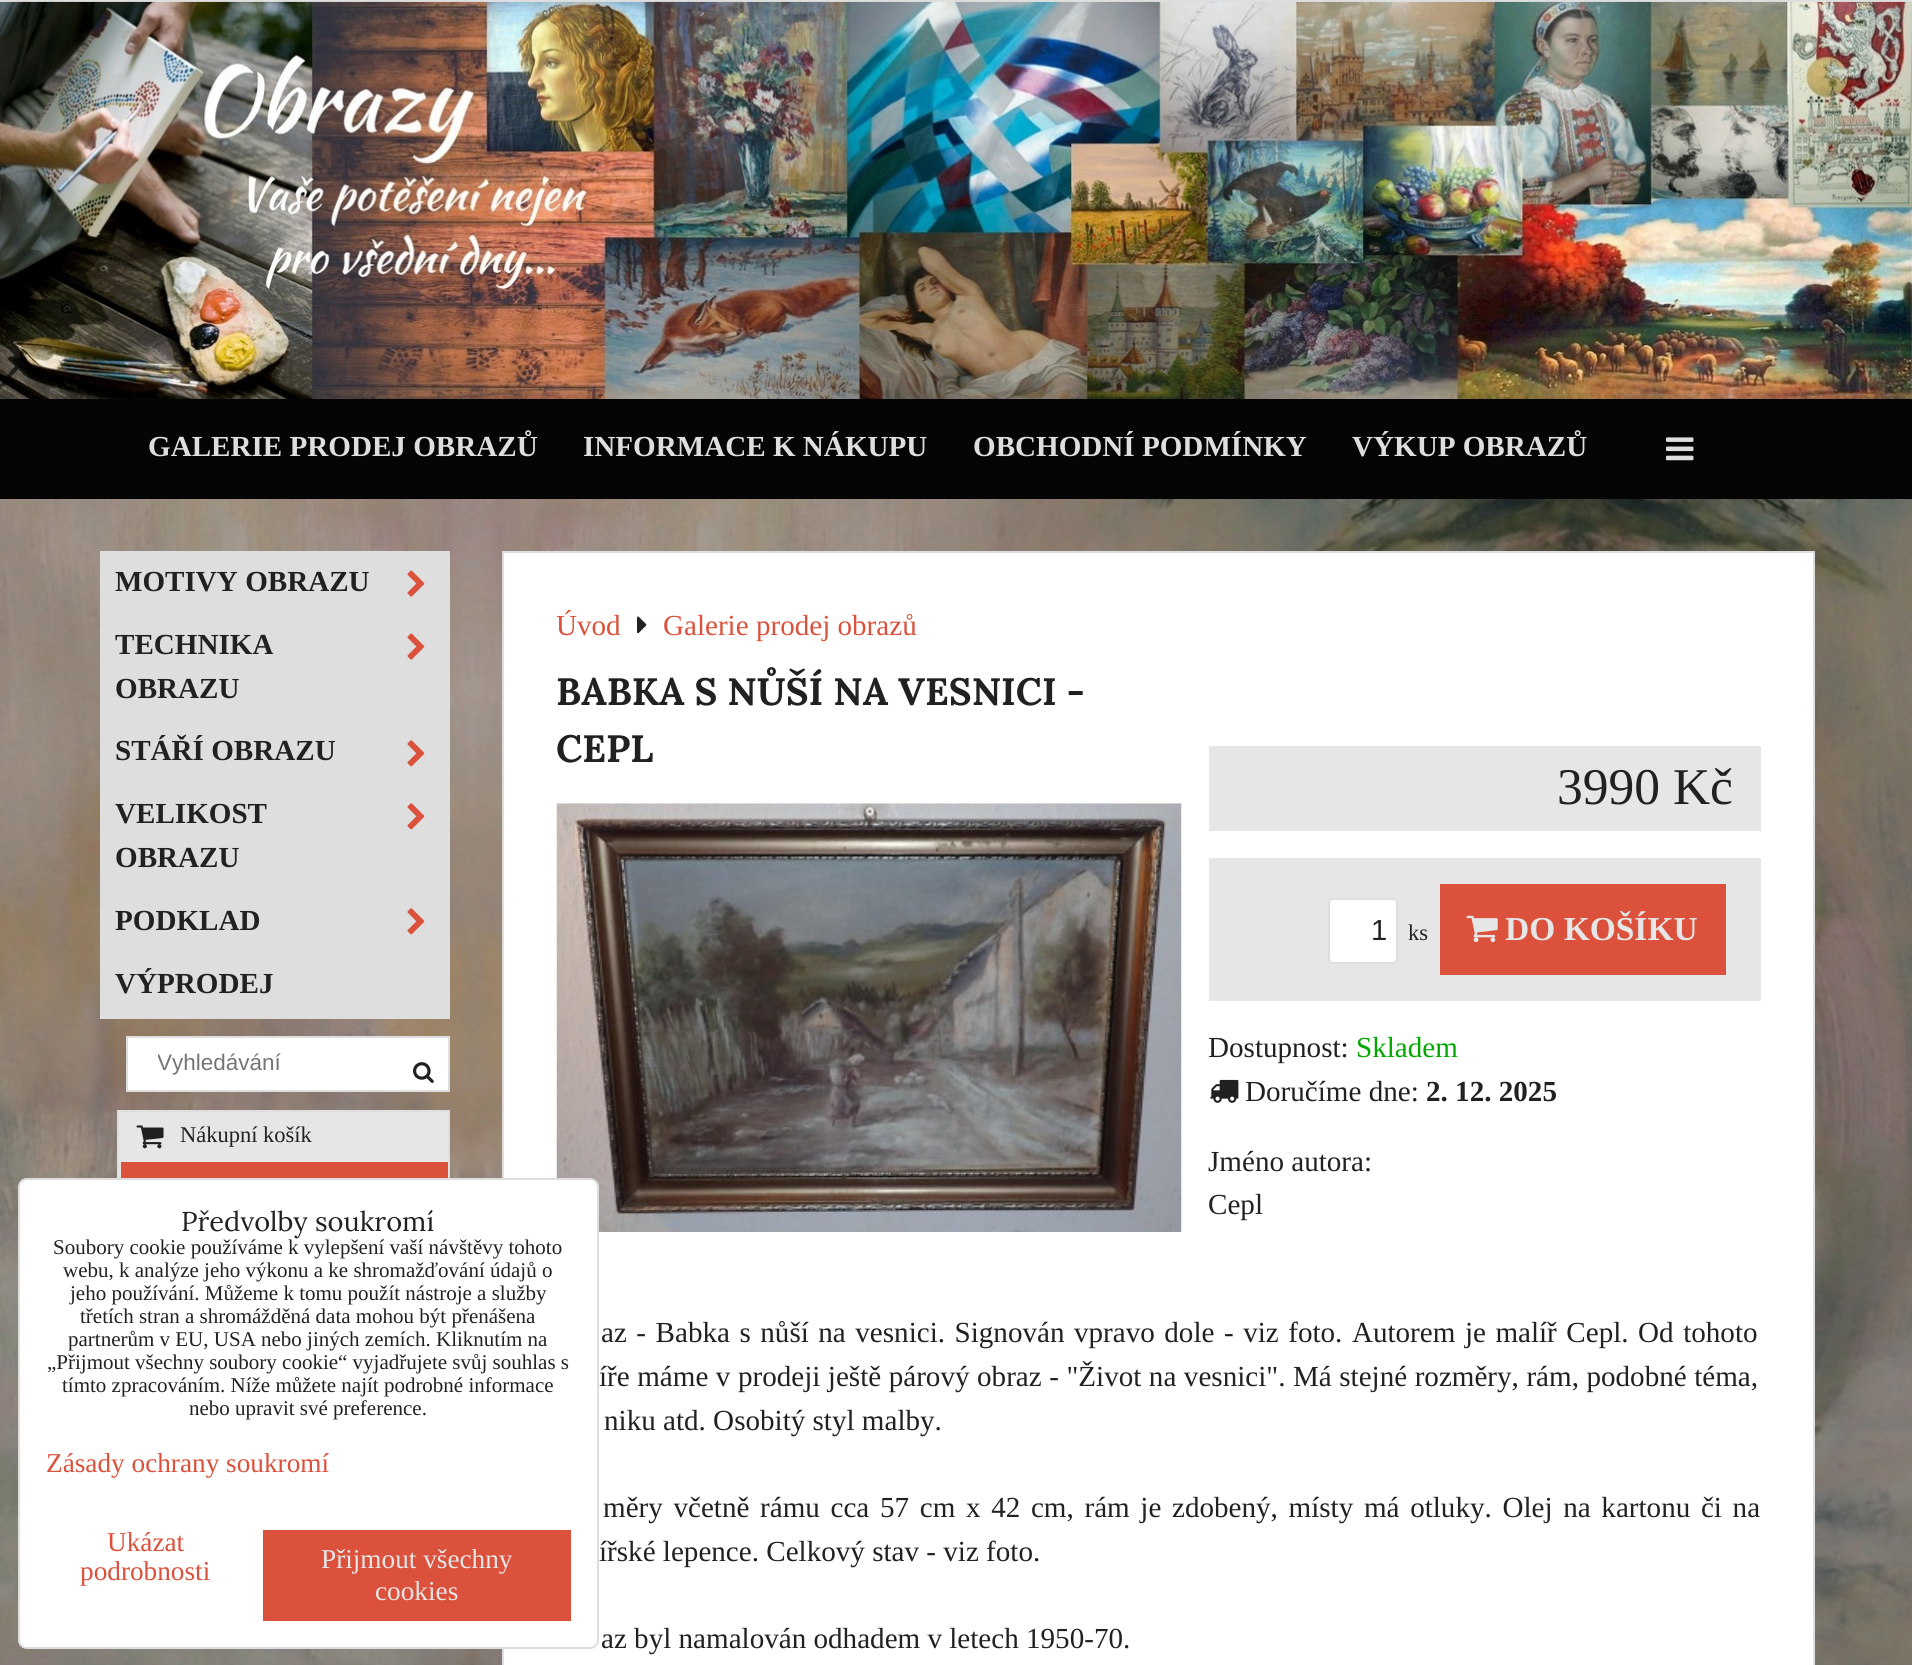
#include <cairo.h>
#include <math.h>
#include <stddef.h>

static cairo_t *ctx;

static void use_color(int r, int g, int b) {
    cairo_set_source_rgb(ctx, r / 255.0, g / 255.0, b / 255.0);
}

static void spaced_text(double x, double y, const char *s, double letter, double word) {
    cairo_move_to(ctx, x, y);
    while (*s) {
        char ch[5] = {0};
        int n = 0;
        do ch[n++] = *s++; while ((*s & 0xC0) == 0x80);
        cairo_show_text(ctx, ch);
        cairo_rel_move_to(ctx, letter + word * (*ch == ' '), 0);
    }
}

static void round_rect(double x, double y, double w, double h, double r) {
    cairo_new_sub_path(ctx);
    cairo_arc(ctx, x + w - r, y + h - r, r, 0, M_PI / 2);
    cairo_arc(ctx, x + r, y + h - r, r, M_PI / 2, M_PI);
    cairo_arc(ctx, x + r, y + r, r, M_PI, 1.5 * M_PI);
    cairo_arc(ctx, x + w - r, y + r, r, 1.5 * M_PI, 2 * M_PI);
    cairo_close_path(ctx);
}

static void picture(const char *path, double x, double y, double w, double h) {
    cairo_surface_t *image = cairo_image_surface_create_from_png(path);
    cairo_save(ctx);
    cairo_set_source_surface(ctx, image, x, y);
    cairo_rectangle(ctx, x, y, w, h);
    cairo_fill(ctx);
    cairo_restore(ctx);
    cairo_surface_destroy(image);
}

int main(void) {
    cairo_surface_t *surface = cairo_image_surface_create(CAIRO_FORMAT_RGB24, 1912, 1665);
    ctx = cairo_create(surface);
    cairo_font_options_t *options = cairo_font_options_create();
    cairo_font_options_set_hint_metrics(options, CAIRO_HINT_METRICS_OFF);
    cairo_font_options_set_hint_style(options, CAIRO_HINT_STYLE_NONE);
    cairo_set_font_options(ctx, options);
    cairo_set_miter_limit(ctx, 4);
    use_color(255, 255, 255);
    cairo_paint(ctx);
    picture("img1.png", 0, 499, 1912, 1166);
    use_color(222, 222, 222);
    cairo_rectangle(ctx, 0, 0, 1912, 2);
    cairo_fill(ctx);
    picture("img2.png", 0, 1, 1912, 398);
    use_color(5, 5, 5);
    cairo_rectangle(ctx, 0, 399, 1912, 100);
    cairo_fill(ctx);
    cairo_select_font_face(ctx, "Liberation Serif", CAIRO_FONT_SLANT_NORMAL, CAIRO_FONT_WEIGHT_BOLD);
    cairo_set_font_size(ctx, 29.1);
    use_color(222, 222, 222);
    cairo_move_to(ctx, 148, 456);
    cairo_show_text(ctx, "GALERIE PRODEJ OBRAZŮ");
    cairo_move_to(ctx, 583, 456);
    cairo_show_text(ctx, "INFORMACE K NÁKUPU");
    cairo_move_to(ctx, 973, 456);
    cairo_show_text(ctx, "OBCHODNÍ PODMÍNKY");
    cairo_move_to(ctx, 1352, 456);
    cairo_show_text(ctx, "VÝKUP OBRAZŮ");
    picture("img3.png", 1666, 437, 28, 24);
    cairo_rectangle(ctx, 100, 551, 350, 468);
    cairo_fill(ctx);
    use_color(32, 33, 35);
    cairo_move_to(ctx, 115, 591);
    cairo_show_text(ctx, "MOTIVY OBRAZU");
    picture("img4.png", 407, 570, 18, 27);
    cairo_move_to(ctx, 115, 654);
    cairo_show_text(ctx, "TECHNIKA");
    picture("img4.png", 407, 633, 18, 27);
    cairo_move_to(ctx, 115, 698);
    cairo_show_text(ctx, "OBRAZU");
    cairo_move_to(ctx, 115, 760);
    cairo_show_text(ctx, "STÁŘÍ OBRAZU");
    picture("img5.png", 407, 740, 18, 27);
    cairo_move_to(ctx, 115, 823);
    cairo_show_text(ctx, "VELIKOST");
    picture("img5.png", 407, 803, 18, 27);
    cairo_move_to(ctx, 115, 867);
    cairo_show_text(ctx, "OBRAZU");
    cairo_move_to(ctx, 115, 930);
    cairo_show_text(ctx, "PODKLAD");
    picture("img5.png", 407, 908, 18, 27);
    cairo_move_to(ctx, 115, 993);
    cairo_show_text(ctx, "VÝPRODEJ");
    use_color(255, 255, 255);
    cairo_rectangle(ctx, 127, 1037, 322, 54);
    cairo_fill_preserve(ctx);
    use_color(222, 222, 222);
    cairo_stroke(ctx);
    cairo_save(ctx);
    cairo_rectangle(ctx, 158, 1048, 241, 27);
    cairo_clip(ctx);
    cairo_select_font_face(ctx, "Liberation Sans", CAIRO_FONT_SLANT_NORMAL, CAIRO_FONT_WEIGHT_NORMAL);
    cairo_set_font_size(ctx, 22.5);
    use_color(117, 117, 117);
    cairo_move_to(ctx, 157, 1070);
    cairo_show_text(ctx, "Vyhledávání");
    cairo_restore(ctx);
    picture("img6.png", 413, 1062, 21, 21);
    use_color(230, 230, 230);
    cairo_rectangle(ctx, 119, 1112, 329, 50);
    cairo_fill(ctx);
    cairo_rectangle(ctx, 118, 1111, 331, 85);
    use_color(222, 222, 222);
    cairo_stroke(ctx);
    picture("img7.png", 136, 1125, 28, 24);
    cairo_select_font_face(ctx, "Liberation Serif", CAIRO_FONT_SLANT_NORMAL, CAIRO_FONT_WEIGHT_NORMAL);
    cairo_set_font_size(ctx, 22.5);
    use_color(32, 33, 35);
    cairo_move_to(ctx, 180, 1142);
    cairo_show_text(ctx, "Nákupní košík");
    use_color(219, 81, 59);
    cairo_rectangle(ctx, 121, 1162, 327, 16);
    cairo_fill(ctx);
    use_color(230, 230, 230);
    cairo_rectangle(ctx, 119, 1162, 2, 16);
    cairo_fill(ctx);
    use_color(255, 255, 255);
    cairo_rectangle(ctx, 503, 552, 1311, 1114);
    cairo_fill_preserve(ctx);
    use_color(222, 222, 222);
    cairo_stroke(ctx);
    cairo_set_font_size(ctx, 29.1);
    use_color(219, 81, 59);
    cairo_move_to(ctx, 556, 635);
    cairo_show_text(ctx, "Úvod");
    picture("img8.png", 637, 616, 10, 18);
    cairo_move_to(ctx, 663, 635);
    cairo_show_text(ctx, "Galerie prodej obrazů");
    cairo_select_font_face(ctx, "Lora", CAIRO_FONT_SLANT_NORMAL, CAIRO_FONT_WEIGHT_BOLD);
    cairo_set_font_size(ctx, 38.1);
    use_color(32, 33, 35);
    cairo_move_to(ctx, 556, 705);
    cairo_show_text(ctx, "BABKA S NŮŠÍ NA VESNICI -");
    cairo_move_to(ctx, 556, 762);
    cairo_show_text(ctx, "CEPL");
    picture("img9.png", 556, 803, 626, 429);
    use_color(230, 230, 230);
    cairo_rectangle(ctx, 1209, 746, 552, 85);
    cairo_fill(ctx);
    cairo_select_font_face(ctx, "Liberation Serif", CAIRO_FONT_SLANT_NORMAL, CAIRO_FONT_WEIGHT_NORMAL);
    cairo_set_font_size(ctx, 51.5);
    use_color(32, 33, 35);
    cairo_move_to(ctx, 1557, 804);
    cairo_show_text(ctx, "3990 Kč");
    use_color(230, 230, 230);
    cairo_rectangle(ctx, 1209, 858, 552, 143);
    cairo_fill(ctx);
    use_color(255, 255, 255);
    round_rect(1329, 899, 68, 64, 4);
    cairo_fill_preserve(ctx);
    use_color(222, 222, 222);
    cairo_stroke(ctx);
    cairo_select_font_face(ctx, "Liberation Sans", CAIRO_FONT_SLANT_NORMAL, CAIRO_FONT_WEIGHT_NORMAL);
    cairo_set_font_size(ctx, 29.1);
    use_color(32, 33, 35);
    cairo_move_to(ctx, 1371, 940);
    cairo_show_text(ctx, "1");
    cairo_select_font_face(ctx, "Liberation Serif", CAIRO_FONT_SLANT_NORMAL, CAIRO_FONT_WEIGHT_NORMAL);
    cairo_set_font_size(ctx, 22.5);
    cairo_move_to(ctx, 1408, 940);
    cairo_show_text(ctx, "ks");
    use_color(219, 81, 59);
    cairo_rectangle(ctx, 1440, 884, 286, 91);
    cairo_fill(ctx);
    picture("img10.png", 1466, 915, 32, 28);
    cairo_select_font_face(ctx, "Liberation Serif", CAIRO_FONT_SLANT_NORMAL, CAIRO_FONT_WEIGHT_BOLD);
    cairo_set_font_size(ctx, 33.5);
    use_color(230, 230, 230);
    cairo_move_to(ctx, 1505, 940);
    cairo_show_text(ctx, "DO KOŠÍKU");
    cairo_select_font_face(ctx, "Liberation Serif", CAIRO_FONT_SLANT_NORMAL, CAIRO_FONT_WEIGHT_NORMAL);
    cairo_set_font_size(ctx, 29.1);
    use_color(32, 33, 35);
    cairo_move_to(ctx, 1208, 1057);
    cairo_show_text(ctx, "Dostupnost:");
    use_color(0, 168, 0);
    cairo_move_to(ctx, 1356, 1057);
    cairo_show_text(ctx, "Skladem");
    picture("img11.png", 1210, 1079, 29, 24);
    use_color(32, 33, 35);
    cairo_move_to(ctx, 1245, 1101);
    cairo_show_text(ctx, "Doručíme dne:");
    cairo_select_font_face(ctx, "Liberation Serif", CAIRO_FONT_SLANT_NORMAL, CAIRO_FONT_WEIGHT_BOLD);
    cairo_move_to(ctx, 1426, 1101);
    cairo_show_text(ctx, "2. 12. 2025");
    cairo_select_font_face(ctx, "Liberation Serif", CAIRO_FONT_SLANT_NORMAL, CAIRO_FONT_WEIGHT_NORMAL);
    cairo_move_to(ctx, 1208, 1171);
    cairo_show_text(ctx, "Jméno autora:");
    cairo_move_to(ctx, 1208, 1214);
    cairo_show_text(ctx, "Cepl");
    spaced_text(601, 1342, "az - Babka s nůší na vesnici. Signován vpravo dole - viz foto. Autorem je malíř Cepl. Od tohoto", 0, 2.25);
    spaced_text(599, 1386, "íře máme v prodeji ještě párový obraz - \"Život na vesnici\". Má stejné rozměry, rám, podobné téma,", 0, 0.25);
    cairo_move_to(ctx, 604, 1430);
    cairo_show_text(ctx, "niku atd. Osobitý styl malby.");
    spaced_text(603, 1517, "měry včetně rámu cca 57 cm x 42 cm, rám je zdobený, místy má otluky. Olej na kartonu či na", 0, 3.4);
    cairo_move_to(ctx, 599, 1561);
    cairo_show_text(ctx, "ířské lepence. Celkový stav - viz foto.");
    cairo_move_to(ctx, 601, 1648);
    cairo_show_text(ctx, "az byl namalován odhadem v letech 1950-70.");
    use_color(255, 255, 255);
    round_rect(19, 1179, 579, 469, 8);
    cairo_fill_preserve(ctx);
    use_color(222, 222, 222);
    cairo_stroke(ctx);
    cairo_select_font_face(ctx, "Lora", CAIRO_FONT_SLANT_NORMAL, CAIRO_FONT_WEIGHT_NORMAL);
    cairo_set_font_size(ctx, 27.25);
    use_color(32, 33, 35);
    cairo_move_to(ctx, 181, 1231);
    cairo_show_text(ctx, "Předvolby soukromí");
    cairo_select_font_face(ctx, "Liberation Serif", CAIRO_FONT_SLANT_NORMAL, CAIRO_FONT_WEIGHT_NORMAL);
    cairo_set_font_size(ctx, 21);
    cairo_move_to(ctx, 53, 1254);
    cairo_show_text(ctx, "Soubory cookie používáme k vylepšení vaší návštěvy tohoto");
    cairo_move_to(ctx, 63, 1277);
    cairo_show_text(ctx, "webu, k analýze jeho výkonu a ke shromažďování údajů o");
    cairo_move_to(ctx, 70, 1300);
    cairo_show_text(ctx, "jeho používání. Můžeme k tomu použít nástroje a služby");
    cairo_move_to(ctx, 80, 1323);
    cairo_show_text(ctx, "třetích stran a shromážděná data mohou být přenášena");
    cairo_move_to(ctx, 68, 1346);
    cairo_show_text(ctx, "partnerům v EU, USA nebo jiných zemích. Kliknutím na");
    cairo_move_to(ctx, 47, 1369);
    cairo_show_text(ctx, "„Přijmout všechny soubory cookie“ vyjadřujete svůj souhlas s");
    cairo_move_to(ctx, 62, 1392);
    cairo_show_text(ctx, "tímto zpracováním. Níže můžete najít podrobné informace");
    cairo_move_to(ctx, 189, 1415);
    cairo_show_text(ctx, "nebo upravit své preference.");
    cairo_set_font_size(ctx, 27.25);
    use_color(219, 81, 59);
    cairo_move_to(ctx, 46, 1472);
    cairo_show_text(ctx, "Zásady ochrany soukromí");
    cairo_move_to(ctx, 107, 1551);
    cairo_show_text(ctx, "Ukázat");
    cairo_move_to(ctx, 80, 1580);
    cairo_show_text(ctx, "podrobnosti");
    cairo_rectangle(ctx, 263, 1530, 308, 91);
    cairo_fill(ctx);
    use_color(230, 230, 230);
    cairo_move_to(ctx, 321, 1568);
    cairo_show_text(ctx, "Přijmout všechny");
    cairo_move_to(ctx, 375, 1600);
    cairo_show_text(ctx, "cookies");
    cairo_surface_write_to_png(surface, "result.png");
    cairo_font_options_destroy(options);
    cairo_destroy(ctx);
    cairo_surface_destroy(surface);
    return 0;
}
